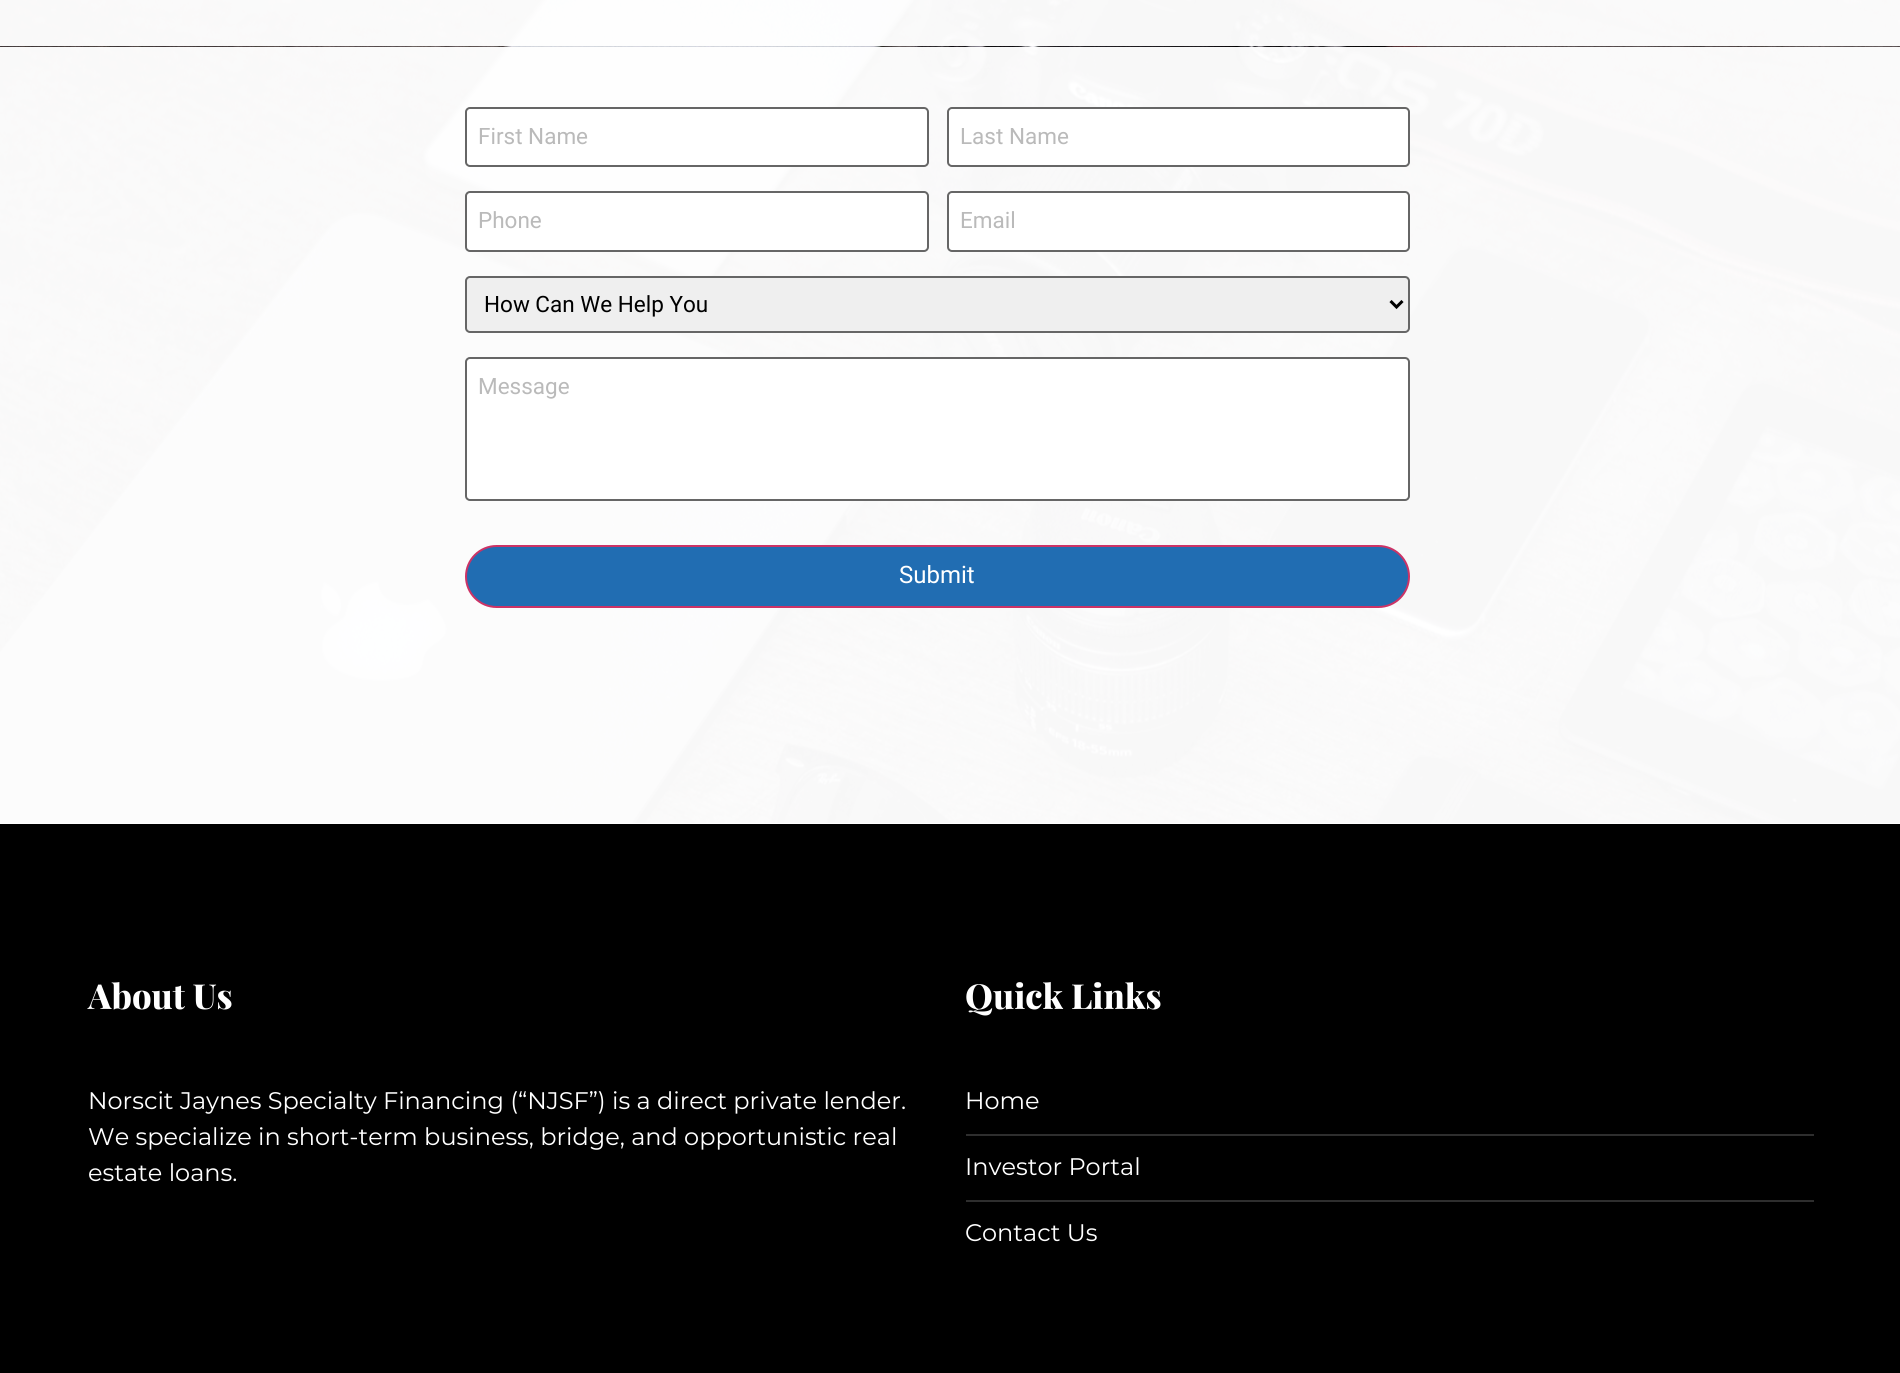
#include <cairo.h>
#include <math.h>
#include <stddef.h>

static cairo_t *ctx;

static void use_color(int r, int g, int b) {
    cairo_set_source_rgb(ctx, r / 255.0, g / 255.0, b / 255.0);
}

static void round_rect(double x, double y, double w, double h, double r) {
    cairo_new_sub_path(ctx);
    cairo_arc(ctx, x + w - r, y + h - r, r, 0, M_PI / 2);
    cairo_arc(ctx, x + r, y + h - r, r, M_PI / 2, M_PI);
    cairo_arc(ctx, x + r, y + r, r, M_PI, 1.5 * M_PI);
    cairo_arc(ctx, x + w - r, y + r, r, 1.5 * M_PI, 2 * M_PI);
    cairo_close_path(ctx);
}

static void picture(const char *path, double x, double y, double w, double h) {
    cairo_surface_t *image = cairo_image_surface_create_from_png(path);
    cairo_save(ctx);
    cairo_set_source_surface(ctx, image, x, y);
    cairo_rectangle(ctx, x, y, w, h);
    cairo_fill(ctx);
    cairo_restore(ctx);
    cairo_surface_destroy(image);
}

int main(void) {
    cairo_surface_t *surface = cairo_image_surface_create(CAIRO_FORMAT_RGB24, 1900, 1373);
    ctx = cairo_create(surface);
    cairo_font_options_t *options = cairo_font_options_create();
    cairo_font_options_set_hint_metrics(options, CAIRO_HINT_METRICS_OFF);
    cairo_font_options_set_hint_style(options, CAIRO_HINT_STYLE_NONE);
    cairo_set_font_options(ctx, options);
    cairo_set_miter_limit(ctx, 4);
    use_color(255, 255, 255);
    cairo_paint(ctx);
    picture("img1.png", 0, 0, 1900, 46);
    picture("img2.png", 0, 46, 1900, 777);
    use_color(255, 255, 255);
    round_rect(466, 108, 462, 58, 4);
    cairo_fill_preserve(ctx);
    use_color(102, 102, 102);
    cairo_stroke(ctx);
    cairo_select_font_face(ctx, "Roboto", CAIRO_FONT_SLANT_NORMAL, CAIRO_FONT_WEIGHT_NORMAL);
    cairo_set_font_size(ctx, 22.5);
    use_color(186, 186, 186);
    cairo_move_to(ctx, 478, 144);
    cairo_show_text(ctx, "First Name");
    use_color(255, 255, 255);
    round_rect(948, 108, 461, 58, 4);
    cairo_fill_preserve(ctx);
    use_color(102, 102, 102);
    cairo_stroke(ctx);
    use_color(186, 186, 186);
    cairo_move_to(ctx, 960, 144);
    cairo_show_text(ctx, "Last Name");
    use_color(255, 255, 255);
    round_rect(466, 192, 462, 59, 4);
    cairo_fill_preserve(ctx);
    use_color(102, 102, 102);
    cairo_stroke(ctx);
    use_color(186, 186, 186);
    cairo_move_to(ctx, 478, 228);
    cairo_show_text(ctx, "Phone");
    use_color(255, 255, 255);
    round_rect(948, 192, 461, 59, 4);
    cairo_fill_preserve(ctx);
    use_color(102, 102, 102);
    cairo_stroke(ctx);
    use_color(186, 186, 186);
    cairo_move_to(ctx, 960, 228);
    cairo_show_text(ctx, "Email");
    use_color(239, 239, 239);
    round_rect(466, 277, 943, 55, 4);
    cairo_fill_preserve(ctx);
    use_color(102, 102, 102);
    cairo_stroke(ctx);
    cairo_new_path(ctx);
    cairo_move_to(ctx, 1390.5, 301);
    cairo_line_to(ctx, 1396.5, 307);
    cairo_line_to(ctx, 1402.5, 301);
    use_color(0, 0, 0);
    cairo_set_line_width(ctx, 3);
    cairo_stroke(ctx);
    cairo_move_to(ctx, 484, 312);
    cairo_show_text(ctx, "How Can We Help You");
    use_color(255, 255, 255);
    round_rect(466, 358, 943, 142, 4);
    cairo_fill_preserve(ctx);
    use_color(102, 102, 102);
    cairo_set_line_width(ctx, 2);
    cairo_stroke(ctx);
    use_color(186, 186, 186);
    cairo_move_to(ctx, 478, 394);
    cairo_show_text(ctx, "Message");
    use_color(33, 109, 178);
    round_rect(466, 546, 943, 61, 30.5);
    cairo_fill_preserve(ctx);
    use_color(204, 51, 102);
    cairo_stroke(ctx);
    cairo_set_font_size(ctx, 24);
    use_color(255, 255, 255);
    cairo_move_to(ctx, 899, 583);
    cairo_show_text(ctx, "Submit");
    use_color(0, 0, 0);
    cairo_rectangle(ctx, 0, 824, 1900, 549);
    cairo_fill(ctx);
    cairo_select_font_face(ctx, "Playfair Display ExtraBold", CAIRO_FONT_SLANT_NORMAL, CAIRO_FONT_WEIGHT_NORMAL);
    cairo_set_font_size(ctx, 34.5);
    use_color(255, 255, 255);
    cairo_move_to(ctx, 88, 1009);
    cairo_show_text(ctx, "About Us");
    cairo_select_font_face(ctx, "Montserrat", CAIRO_FONT_SLANT_NORMAL, CAIRO_FONT_WEIGHT_NORMAL);
    cairo_set_font_size(ctx, 24);
    cairo_move_to(ctx, 88, 1109);
    cairo_show_text(ctx, "Norscit Jaynes Specialty Financing (“NJSF”) is a direct private lender.");
    cairo_move_to(ctx, 88, 1145);
    cairo_show_text(ctx, "We specialize in short-term business, bridge, and opportunistic real");
    cairo_move_to(ctx, 88, 1181);
    cairo_show_text(ctx, "estate loans.");
    cairo_select_font_face(ctx, "Playfair Display ExtraBold", CAIRO_FONT_SLANT_NORMAL, CAIRO_FONT_WEIGHT_NORMAL);
    cairo_set_font_size(ctx, 34.5);
    cairo_move_to(ctx, 965, 1009);
    cairo_show_text(ctx, "Quick Links");
    cairo_select_font_face(ctx, "Montserrat", CAIRO_FONT_SLANT_NORMAL, CAIRO_FONT_WEIGHT_NORMAL);
    cairo_set_font_size(ctx, 24);
    cairo_move_to(ctx, 965, 1109);
    cairo_show_text(ctx, "Home");
    use_color(46, 46, 46);
    cairo_rectangle(ctx, 966, 1134, 848, 2);
    cairo_fill(ctx);
    use_color(255, 255, 255);
    cairo_move_to(ctx, 965, 1175);
    cairo_show_text(ctx, "Investor Portal");
    use_color(46, 46, 46);
    cairo_rectangle(ctx, 966, 1200, 848, 2);
    cairo_fill(ctx);
    use_color(255, 255, 255);
    cairo_move_to(ctx, 965, 1241);
    cairo_show_text(ctx, "Contact Us");
    cairo_surface_write_to_png(surface, "result.png");
    cairo_font_options_destroy(options);
    cairo_destroy(ctx);
    cairo_surface_destroy(surface);
    return 0;
}
